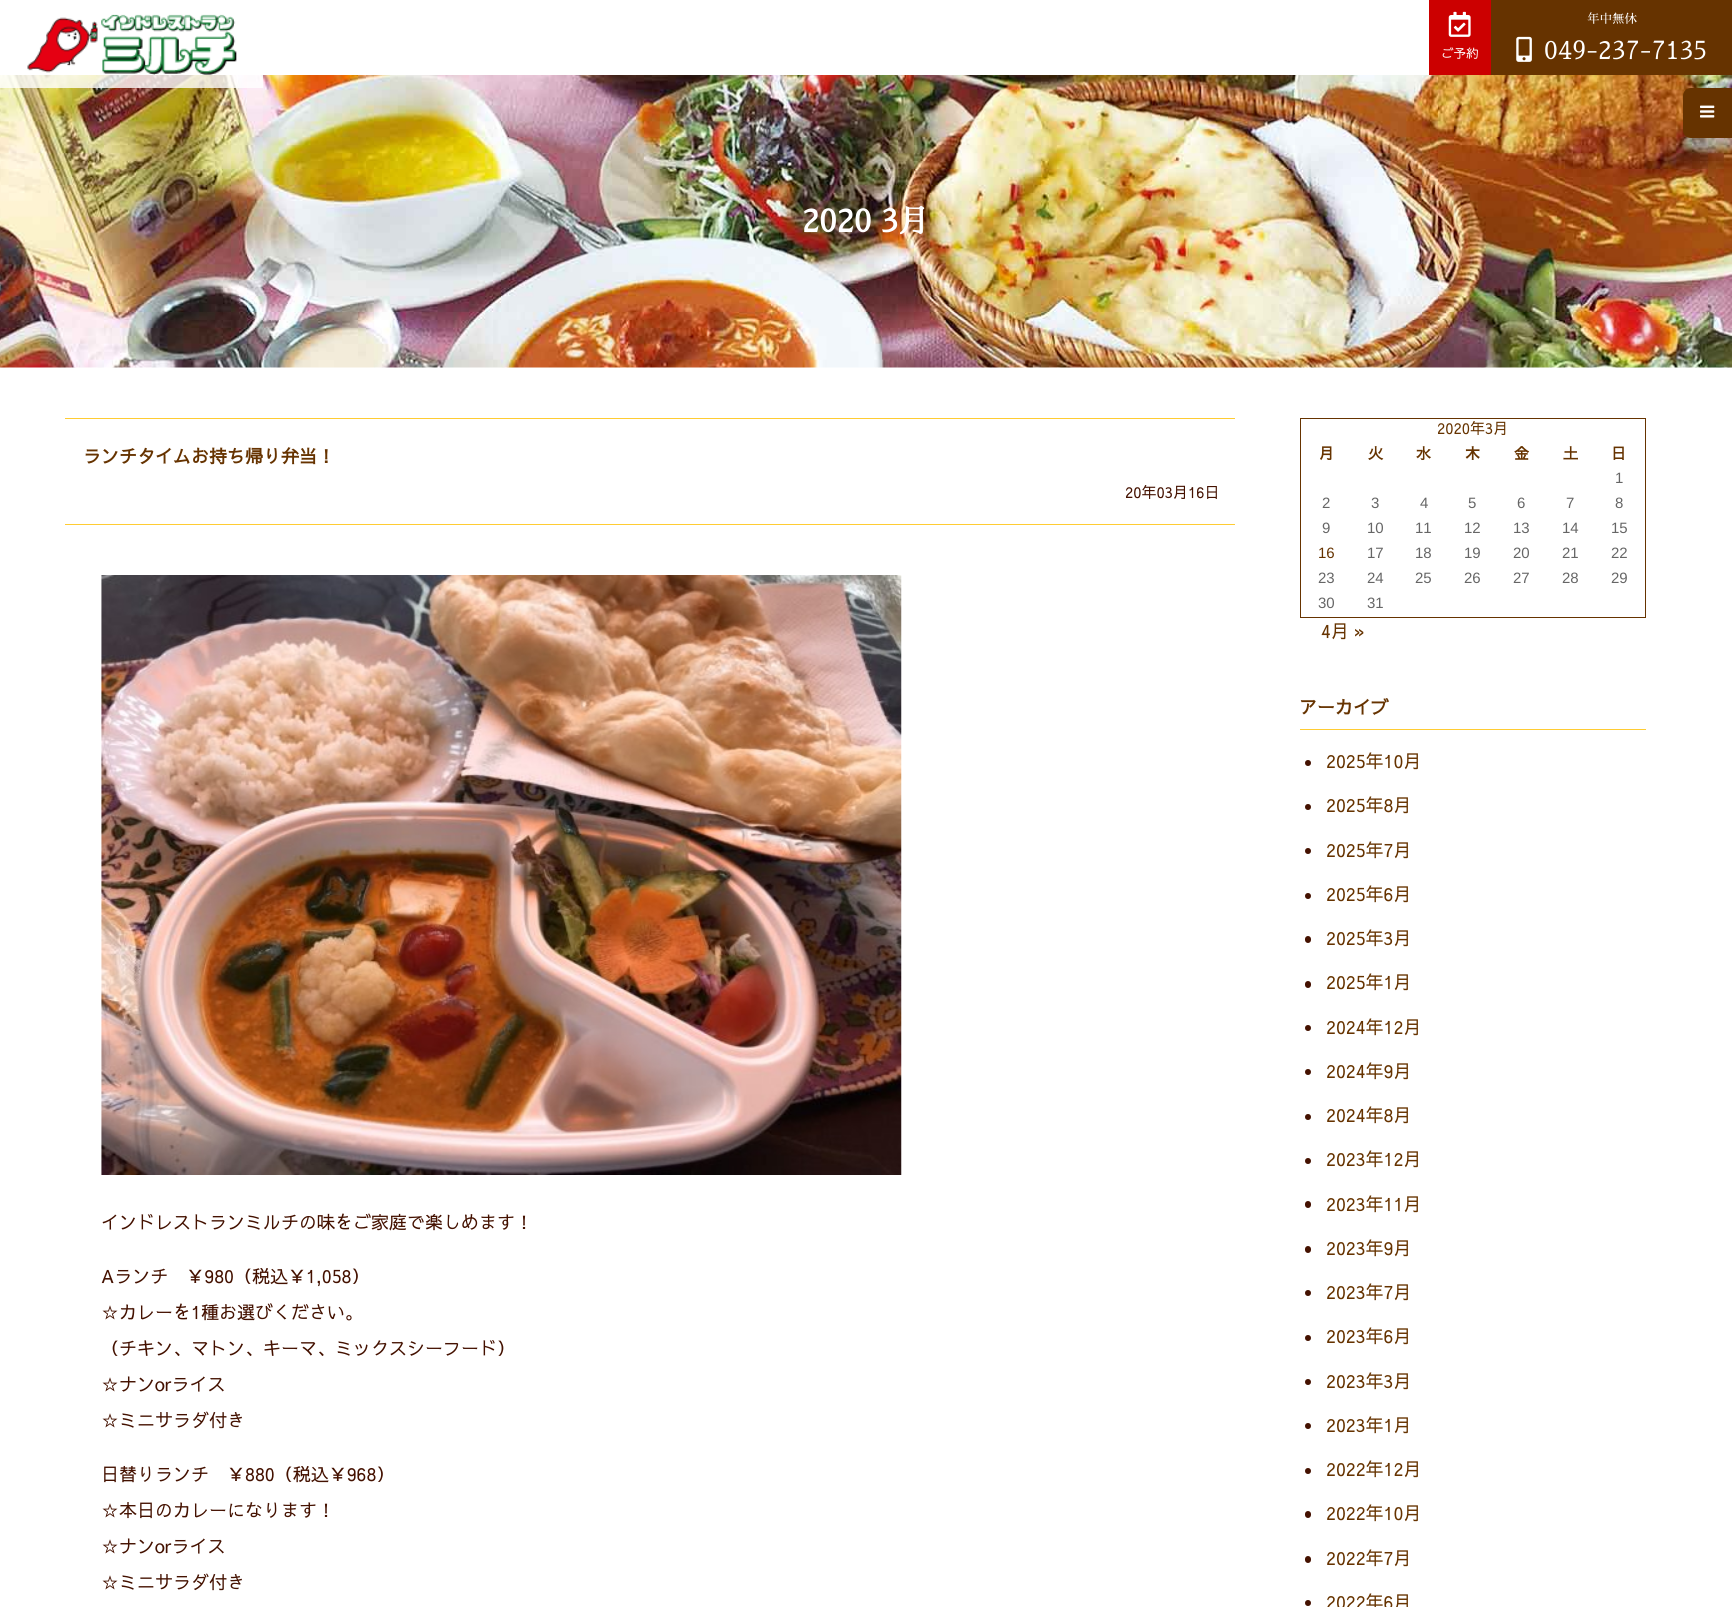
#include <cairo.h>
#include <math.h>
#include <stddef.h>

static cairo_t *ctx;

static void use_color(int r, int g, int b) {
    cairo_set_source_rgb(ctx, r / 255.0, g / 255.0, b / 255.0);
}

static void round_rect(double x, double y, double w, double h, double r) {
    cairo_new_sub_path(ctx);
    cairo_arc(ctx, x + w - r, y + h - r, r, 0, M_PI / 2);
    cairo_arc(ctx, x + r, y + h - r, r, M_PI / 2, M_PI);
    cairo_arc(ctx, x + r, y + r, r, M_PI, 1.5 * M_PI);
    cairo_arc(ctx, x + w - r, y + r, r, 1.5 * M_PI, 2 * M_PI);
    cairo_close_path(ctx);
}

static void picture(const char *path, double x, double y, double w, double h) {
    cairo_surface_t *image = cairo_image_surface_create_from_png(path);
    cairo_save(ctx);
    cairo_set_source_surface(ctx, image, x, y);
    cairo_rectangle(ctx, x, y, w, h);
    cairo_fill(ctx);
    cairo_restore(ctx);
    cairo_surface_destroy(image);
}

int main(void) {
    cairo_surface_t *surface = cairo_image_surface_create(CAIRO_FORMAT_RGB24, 1732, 1607);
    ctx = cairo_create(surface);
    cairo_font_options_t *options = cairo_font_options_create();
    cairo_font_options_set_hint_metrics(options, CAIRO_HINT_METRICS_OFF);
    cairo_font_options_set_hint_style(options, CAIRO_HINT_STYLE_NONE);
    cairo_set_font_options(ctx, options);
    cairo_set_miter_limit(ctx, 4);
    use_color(255, 255, 255);
    cairo_paint(ctx);
    picture("img5.png", 0, 75, 1732, 293);
    cairo_set_source_rgba(ctx, 1, 1, 1, 0.8);
    cairo_rectangle(ctx, 0, 75, 263, 13);
    cairo_fill(ctx);
    picture("img1.png", 27, 14, 210, 61);
    use_color(204, 0, 0);
    cairo_rectangle(ctx, 1429, 0, 62, 75);
    cairo_fill(ctx);
    picture("img2.png", 1448, 11, 23, 26);
    cairo_select_font_face(ctx, "Sawarabi Gothic", CAIRO_FONT_SLANT_NORMAL, CAIRO_FONT_WEIGHT_NORMAL);
    cairo_set_font_size(ctx, 12.5);
    use_color(255, 255, 255);
    cairo_move_to(ctx, 1441, 58);
    cairo_show_text(ctx, "ご予約");
    use_color(102, 51, 0);
    cairo_rectangle(ctx, 1491, 0, 241, 75);
    cairo_fill(ctx);
    cairo_select_font_face(ctx, "Sawarabi Mincho", CAIRO_FONT_SLANT_NORMAL, CAIRO_FONT_WEIGHT_NORMAL);
    use_color(255, 255, 255);
    cairo_move_to(ctx, 1587, 23);
    cairo_show_text(ctx, "年中無休");
    picture("img3.png", 1516, 36, 16, 26);
    cairo_set_font_size(ctx, 25);
    cairo_move_to(ctx, 1544, 59);
    cairo_show_text(ctx, "049-237-7135");
    use_color(102, 51, 0);
    cairo_new_path(ctx);
    cairo_move_to(ctx, 1691, 88);
    cairo_line_to(ctx, 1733, 88);
    cairo_line_to(ctx, 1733, 138);
    cairo_line_to(ctx, 1691, 138);
    cairo_curve_to(ctx, 1686.5, 138, 1683, 134.5, 1683, 130);
    cairo_line_to(ctx, 1683, 96);
    cairo_curve_to(ctx, 1683, 91.5, 1686.5, 88, 1691, 88);
    cairo_close_path(ctx);
    cairo_fill(ctx);
    picture("img4.png", 1700, 105, 15, 13);
    cairo_select_font_face(ctx, "Sawarabi Mincho", CAIRO_FONT_SLANT_NORMAL, CAIRO_FONT_WEIGHT_BOLD);
    cairo_set_font_size(ctx, 31.5);
    use_color(255, 255, 255);
    cairo_move_to(ctx, 802, 232);
    cairo_show_text(ctx, "2020 3月");
    use_color(255, 204, 51);
    cairo_rectangle(ctx, 65, 418, 1170, 1);
    cairo_fill(ctx);
    cairo_rectangle(ctx, 65, 524, 1170, 1);
    cairo_fill(ctx);
    cairo_select_font_face(ctx, "Sawarabi Gothic", CAIRO_FONT_SLANT_NORMAL, CAIRO_FONT_WEIGHT_BOLD);
    cairo_set_font_size(ctx, 18);
    use_color(102, 51, 0);
    cairo_move_to(ctx, 83, 463);
    cairo_show_text(ctx, "ランチタイムお持ち帰り弁当！");
    cairo_select_font_face(ctx, "Sawarabi Gothic", CAIRO_FONT_SLANT_NORMAL, CAIRO_FONT_WEIGHT_NORMAL);
    cairo_set_font_size(ctx, 15);
    use_color(68, 17, 0);
    cairo_move_to(ctx, 1125, 498);
    cairo_show_text(ctx, "20年03月16日");
    picture("img6.png", 101, 575, 801, 600);
    cairo_set_font_size(ctx, 18);
    cairo_move_to(ctx, 101, 1229);
    cairo_show_text(ctx, "インドレストランミルチの味をご家庭で楽しめます！");
    cairo_move_to(ctx, 101, 1283);
    cairo_show_text(ctx, "Aランチ　￥980（税込￥1,058）");
    cairo_move_to(ctx, 101, 1319);
    cairo_show_text(ctx, "☆カレーを1種お選びください。");
    cairo_move_to(ctx, 101, 1355);
    cairo_show_text(ctx, "（チキン、マトン、キーマ、ミックスシーフード）");
    cairo_move_to(ctx, 101, 1391);
    cairo_show_text(ctx, "☆ナンorライス");
    cairo_move_to(ctx, 101, 1427);
    cairo_show_text(ctx, "☆ミニサラダ付き");
    cairo_move_to(ctx, 101, 1481);
    cairo_show_text(ctx, "日替りランチ　￥880（税込￥968）");
    cairo_move_to(ctx, 101, 1517);
    cairo_show_text(ctx, "☆本日のカレーになります！");
    cairo_move_to(ctx, 101, 1553);
    cairo_show_text(ctx, "☆ナンorライス");
    cairo_move_to(ctx, 101, 1589);
    cairo_show_text(ctx, "☆ミニサラダ付き");
    cairo_rectangle(ctx, 1300.5, 418.5, 345, 199);
    use_color(102, 51, 0);
    cairo_set_line_width(ctx, 1);
    cairo_stroke(ctx);
    cairo_set_font_size(ctx, 15);
    cairo_move_to(ctx, 1437, 434);
    cairo_show_text(ctx, "2020年3月");
    cairo_select_font_face(ctx, "Sawarabi Gothic", CAIRO_FONT_SLANT_NORMAL, CAIRO_FONT_WEIGHT_BOLD);
    cairo_move_to(ctx, 1319, 459);
    cairo_show_text(ctx, "月");
    cairo_move_to(ctx, 1368, 459);
    cairo_show_text(ctx, "火");
    cairo_move_to(ctx, 1416, 459);
    cairo_show_text(ctx, "水");
    cairo_move_to(ctx, 1465, 459);
    cairo_show_text(ctx, "木");
    cairo_move_to(ctx, 1514, 459);
    cairo_show_text(ctx, "金");
    cairo_move_to(ctx, 1563, 459);
    cairo_show_text(ctx, "土");
    cairo_move_to(ctx, 1611, 459);
    cairo_show_text(ctx, "日");
    cairo_select_font_face(ctx, "Liberation Sans", CAIRO_FONT_SLANT_NORMAL, CAIRO_FONT_WEIGHT_NORMAL);
    use_color(102, 102, 102);
    cairo_move_to(ctx, 1615, 483);
    cairo_show_text(ctx, "1");
    cairo_move_to(ctx, 1322, 508);
    cairo_show_text(ctx, "2");
    cairo_move_to(ctx, 1371, 508);
    cairo_show_text(ctx, "3");
    cairo_move_to(ctx, 1420, 508);
    cairo_show_text(ctx, "4");
    cairo_move_to(ctx, 1468, 508);
    cairo_show_text(ctx, "5");
    cairo_move_to(ctx, 1517, 508);
    cairo_show_text(ctx, "6");
    cairo_move_to(ctx, 1566, 508);
    cairo_show_text(ctx, "7");
    cairo_move_to(ctx, 1615, 508);
    cairo_show_text(ctx, "8");
    cairo_move_to(ctx, 1322, 533);
    cairo_show_text(ctx, "9");
    cairo_move_to(ctx, 1367, 533);
    cairo_show_text(ctx, "10");
    cairo_move_to(ctx, 1415, 533);
    cairo_show_text(ctx, "11");
    cairo_move_to(ctx, 1464, 533);
    cairo_show_text(ctx, "12");
    cairo_move_to(ctx, 1513, 533);
    cairo_show_text(ctx, "13");
    cairo_move_to(ctx, 1562, 533);
    cairo_show_text(ctx, "14");
    cairo_move_to(ctx, 1611, 533);
    cairo_show_text(ctx, "15");
    use_color(102, 51, 0);
    cairo_move_to(ctx, 1318, 558);
    cairo_show_text(ctx, "16");
    use_color(102, 102, 102);
    cairo_move_to(ctx, 1367, 558);
    cairo_show_text(ctx, "17");
    cairo_move_to(ctx, 1415, 558);
    cairo_show_text(ctx, "18");
    cairo_move_to(ctx, 1464, 558);
    cairo_show_text(ctx, "19");
    cairo_move_to(ctx, 1513, 558);
    cairo_show_text(ctx, "20");
    cairo_move_to(ctx, 1562, 558);
    cairo_show_text(ctx, "21");
    cairo_move_to(ctx, 1611, 558);
    cairo_show_text(ctx, "22");
    cairo_move_to(ctx, 1318, 583);
    cairo_show_text(ctx, "23");
    cairo_move_to(ctx, 1367, 583);
    cairo_show_text(ctx, "24");
    cairo_move_to(ctx, 1415, 583);
    cairo_show_text(ctx, "25");
    cairo_move_to(ctx, 1464, 583);
    cairo_show_text(ctx, "26");
    cairo_move_to(ctx, 1513, 583);
    cairo_show_text(ctx, "27");
    cairo_move_to(ctx, 1562, 583);
    cairo_show_text(ctx, "28");
    cairo_move_to(ctx, 1611, 583);
    cairo_show_text(ctx, "29");
    cairo_move_to(ctx, 1318, 608);
    cairo_show_text(ctx, "30");
    cairo_move_to(ctx, 1367, 608);
    cairo_show_text(ctx, "31");
    cairo_select_font_face(ctx, "Sawarabi Gothic", CAIRO_FONT_SLANT_NORMAL, CAIRO_FONT_WEIGHT_NORMAL);
    cairo_set_font_size(ctx, 18);
    use_color(102, 51, 0);
    cairo_move_to(ctx, 1321, 638);
    cairo_show_text(ctx, "4月 »");
    use_color(255, 204, 51);
    cairo_rectangle(ctx, 1300, 729, 346, 1);
    cairo_fill(ctx);
    cairo_select_font_face(ctx, "Sawarabi Gothic", CAIRO_FONT_SLANT_NORMAL, CAIRO_FONT_WEIGHT_BOLD);
    use_color(102, 51, 0);
    cairo_move_to(ctx, 1299, 714);
    cairo_show_text(ctx, "アーカイブ");
    use_color(68, 17, 0);
    cairo_new_path(ctx);
    cairo_arc(ctx, 1308, 763, 3, 0, 2 * M_PI);
    cairo_fill(ctx);
    cairo_select_font_face(ctx, "Sawarabi Gothic", CAIRO_FONT_SLANT_NORMAL, CAIRO_FONT_WEIGHT_NORMAL);
    use_color(102, 51, 0);
    cairo_move_to(ctx, 1326, 768);
    cairo_show_text(ctx, "2025年10月");
    use_color(68, 17, 0);
    cairo_new_path(ctx);
    cairo_arc(ctx, 1308, 807, 3, 0, 2 * M_PI);
    cairo_fill(ctx);
    use_color(102, 51, 0);
    cairo_move_to(ctx, 1326, 812);
    cairo_show_text(ctx, "2025年8月");
    use_color(68, 17, 0);
    cairo_new_path(ctx);
    cairo_arc(ctx, 1308, 851, 3, 0, 2 * M_PI);
    cairo_fill(ctx);
    use_color(102, 51, 0);
    cairo_move_to(ctx, 1326, 857);
    cairo_show_text(ctx, "2025年7月");
    use_color(68, 17, 0);
    cairo_new_path(ctx);
    cairo_arc(ctx, 1308, 896, 3, 0, 2 * M_PI);
    cairo_fill(ctx);
    use_color(102, 51, 0);
    cairo_move_to(ctx, 1326, 901);
    cairo_show_text(ctx, "2025年6月");
    use_color(68, 17, 0);
    round_rect(1305, 936, 6, 7, 3);
    cairo_fill(ctx);
    use_color(102, 51, 0);
    cairo_move_to(ctx, 1326, 945);
    cairo_show_text(ctx, "2025年3月");
    use_color(68, 17, 0);
    round_rect(1305, 981, 6, 7, 3);
    cairo_fill(ctx);
    use_color(102, 51, 0);
    cairo_move_to(ctx, 1326, 989);
    cairo_show_text(ctx, "2025年1月");
    use_color(68, 17, 0);
    cairo_new_path(ctx);
    cairo_arc(ctx, 1308, 1028, 3, 0, 2 * M_PI);
    cairo_fill(ctx);
    use_color(102, 51, 0);
    cairo_move_to(ctx, 1326, 1034);
    cairo_show_text(ctx, "2024年12月");
    use_color(68, 17, 0);
    cairo_new_path(ctx);
    cairo_arc(ctx, 1308, 1072, 3, 0, 2 * M_PI);
    cairo_fill(ctx);
    use_color(102, 51, 0);
    cairo_move_to(ctx, 1326, 1078);
    cairo_show_text(ctx, "2024年9月");
    use_color(68, 17, 0);
    cairo_new_path(ctx);
    cairo_arc(ctx, 1308, 1117, 3, 0, 2 * M_PI);
    cairo_fill(ctx);
    use_color(102, 51, 0);
    cairo_move_to(ctx, 1326, 1122);
    cairo_show_text(ctx, "2024年8月");
    use_color(68, 17, 0);
    cairo_new_path(ctx);
    cairo_arc(ctx, 1308, 1161, 3, 0, 2 * M_PI);
    cairo_fill(ctx);
    use_color(102, 51, 0);
    cairo_move_to(ctx, 1326, 1166);
    cairo_show_text(ctx, "2023年12月");
    use_color(68, 17, 0);
    round_rect(1305, 1201, 6, 7, 3);
    cairo_fill(ctx);
    use_color(102, 51, 0);
    cairo_move_to(ctx, 1326, 1211);
    cairo_show_text(ctx, "2023年11月");
    use_color(68, 17, 0);
    round_rect(1305, 1246, 6, 7, 3);
    cairo_fill(ctx);
    use_color(102, 51, 0);
    cairo_move_to(ctx, 1326, 1255);
    cairo_show_text(ctx, "2023年9月");
    use_color(68, 17, 0);
    cairo_new_path(ctx);
    cairo_arc(ctx, 1308, 1293, 3, 0, 2 * M_PI);
    cairo_fill(ctx);
    use_color(102, 51, 0);
    cairo_move_to(ctx, 1326, 1299);
    cairo_show_text(ctx, "2023年7月");
    use_color(68, 17, 0);
    cairo_new_path(ctx);
    cairo_arc(ctx, 1308, 1338, 3, 0, 2 * M_PI);
    cairo_fill(ctx);
    use_color(102, 51, 0);
    cairo_move_to(ctx, 1326, 1343);
    cairo_show_text(ctx, "2023年6月");
    use_color(68, 17, 0);
    cairo_new_path(ctx);
    cairo_arc(ctx, 1308, 1382, 3, 0, 2 * M_PI);
    cairo_fill(ctx);
    use_color(102, 51, 0);
    cairo_move_to(ctx, 1326, 1388);
    cairo_show_text(ctx, "2023年3月");
    use_color(68, 17, 0);
    cairo_new_path(ctx);
    cairo_arc(ctx, 1308, 1426, 3, 0, 2 * M_PI);
    cairo_fill(ctx);
    use_color(102, 51, 0);
    cairo_move_to(ctx, 1326, 1432);
    cairo_show_text(ctx, "2023年1月");
    use_color(68, 17, 0);
    cairo_new_path(ctx);
    cairo_arc(ctx, 1308, 1471, 3, 0, 2 * M_PI);
    cairo_fill(ctx);
    use_color(102, 51, 0);
    cairo_move_to(ctx, 1326, 1476);
    cairo_show_text(ctx, "2022年12月");
    use_color(68, 17, 0);
    round_rect(1305, 1511, 6, 7, 3);
    cairo_fill(ctx);
    use_color(102, 51, 0);
    cairo_move_to(ctx, 1326, 1520);
    cairo_show_text(ctx, "2022年10月");
    use_color(68, 17, 0);
    round_rect(1305, 1556, 6, 7, 3);
    cairo_fill(ctx);
    use_color(102, 51, 0);
    cairo_move_to(ctx, 1326, 1565);
    cairo_show_text(ctx, "2022年7月");
    use_color(68, 17, 0);
    cairo_new_path(ctx);
    cairo_arc(ctx, 1308, 1603, 3, 0, 2 * M_PI);
    cairo_fill(ctx);
    use_color(102, 51, 0);
    cairo_move_to(ctx, 1326, 1609);
    cairo_show_text(ctx, "2022年6月");
    cairo_surface_write_to_png(surface, "result.png");
    cairo_font_options_destroy(options);
    cairo_destroy(ctx);
    cairo_surface_destroy(surface);
    return 0;
}
